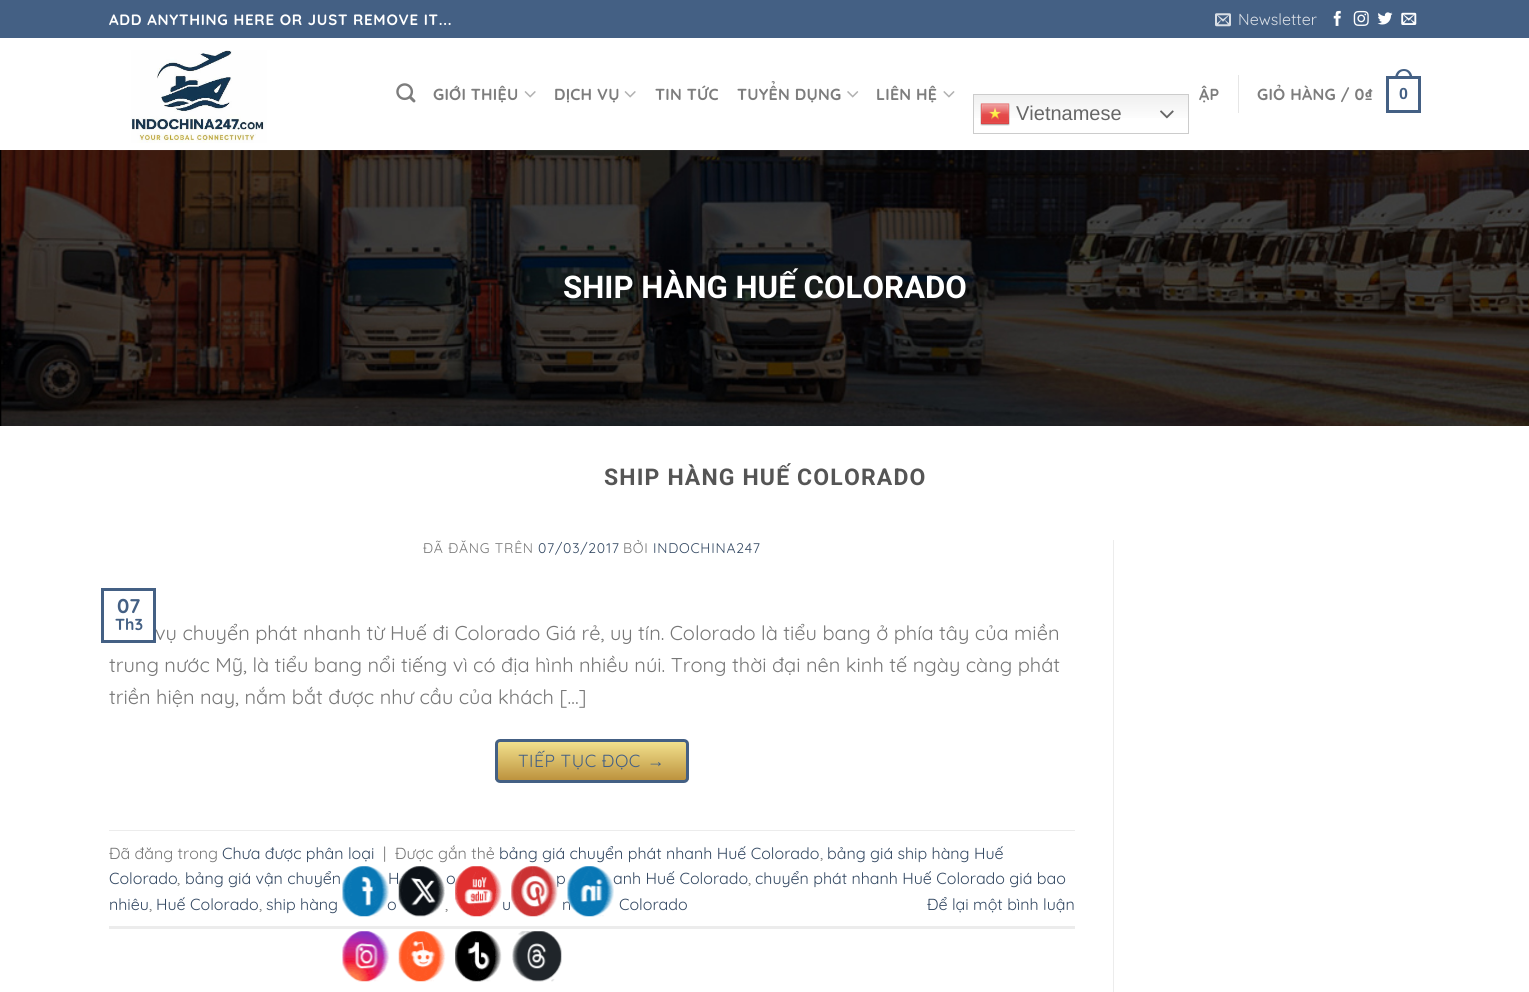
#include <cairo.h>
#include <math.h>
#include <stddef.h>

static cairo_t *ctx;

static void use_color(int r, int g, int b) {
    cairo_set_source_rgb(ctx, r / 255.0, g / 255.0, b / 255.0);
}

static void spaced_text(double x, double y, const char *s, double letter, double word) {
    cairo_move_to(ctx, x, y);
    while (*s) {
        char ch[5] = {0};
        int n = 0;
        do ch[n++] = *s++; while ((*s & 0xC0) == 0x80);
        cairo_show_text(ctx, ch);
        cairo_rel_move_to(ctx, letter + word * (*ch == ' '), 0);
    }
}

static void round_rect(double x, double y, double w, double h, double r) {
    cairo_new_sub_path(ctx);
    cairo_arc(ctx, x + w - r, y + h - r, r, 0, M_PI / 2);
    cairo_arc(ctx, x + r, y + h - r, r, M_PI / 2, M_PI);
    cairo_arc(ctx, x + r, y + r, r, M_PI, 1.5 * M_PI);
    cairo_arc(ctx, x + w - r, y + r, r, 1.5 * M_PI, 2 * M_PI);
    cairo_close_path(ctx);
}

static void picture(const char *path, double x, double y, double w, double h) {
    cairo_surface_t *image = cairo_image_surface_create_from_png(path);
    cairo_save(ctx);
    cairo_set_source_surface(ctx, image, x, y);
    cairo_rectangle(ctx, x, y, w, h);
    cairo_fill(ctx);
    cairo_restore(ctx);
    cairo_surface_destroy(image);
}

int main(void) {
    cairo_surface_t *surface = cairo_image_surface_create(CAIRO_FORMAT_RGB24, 1529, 992);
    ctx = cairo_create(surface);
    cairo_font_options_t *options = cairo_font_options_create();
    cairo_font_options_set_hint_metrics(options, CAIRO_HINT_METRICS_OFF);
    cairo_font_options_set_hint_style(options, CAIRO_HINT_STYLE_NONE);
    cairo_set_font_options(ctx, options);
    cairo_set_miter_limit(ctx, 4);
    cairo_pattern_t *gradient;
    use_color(255, 255, 255);
    cairo_paint(ctx);
    use_color(68, 96, 132);
    cairo_rectangle(ctx, 0, 0, 1529, 38);
    cairo_fill(ctx);
    cairo_select_font_face(ctx, "Quicksand", CAIRO_FONT_SLANT_NORMAL, CAIRO_FONT_WEIGHT_BOLD);
    cairo_set_font_size(ctx, 15);
    use_color(255, 255, 255);
    spaced_text(109, 25, "ADD ANYTHING HERE OR JUST REMOVE IT...", 0.75, 0);
    picture("img1.png", 1215, 13, 16, 14);
    cairo_select_font_face(ctx, "Quicksand", CAIRO_FONT_SLANT_NORMAL, CAIRO_FONT_WEIGHT_NORMAL);
    cairo_set_font_size(ctx, 16);
    use_color(218, 223, 230);
    cairo_move_to(ctx, 1238, 25);
    cairo_show_text(ctx, "Newsletter");
    picture("img2.png", 1333, 10, 8, 16);
    picture("img3.png", 1353, 10, 16, 16);
    picture("img4.png", 1377, 12, 16, 13);
    picture("img5.png", 1401, 12, 16, 13);
    picture("img6.png", 131, 50, 136, 93);
    picture("img7.png", 396, 83, 20, 20);
    cairo_select_font_face(ctx, "Quicksand", CAIRO_FONT_SLANT_NORMAL, CAIRO_FONT_WEIGHT_BOLD);
    use_color(125, 125, 125);
    spaced_text(433, 100, "GIỚI THIỆU", 0.25, 0);
    picture("img8.png", 524, 91, 12, 7);
    spaced_text(554, 100, "DỊCH VỤ", 0.25, 0);
    picture("img8.png", 624, 91, 12, 7);
    spaced_text(655, 100, "TIN TỨC", 0.25, 0);
    spaced_text(737, 100, "TUYỂN DỤNG", 0.25, 0);
    picture("img9.png", 847, 91, 12, 7);
    spaced_text(876, 100, "LIÊN HỆ", 0.25, 0);
    picture("img10.png", 943, 91, 12, 7);
    gradient = cairo_pattern_create_linear(1081, 94, 1081, 134);
    cairo_pattern_add_color_stop_rgba(gradient, 0, 0.937, 0.937, 0.937, 1);
    cairo_pattern_add_color_stop_rgba(gradient, 0.7, 1, 1, 1, 1);
    cairo_set_source(ctx, gradient);
    cairo_pattern_destroy(gradient);
    cairo_rectangle(ctx, 974, 95, 214, 23);
    cairo_fill(ctx);
    cairo_rectangle(ctx, 973.5, 94.5, 215, 39);
    use_color(204, 204, 204);
    cairo_set_line_width(ctx, 1);
    cairo_stroke(ctx);
    picture("img11.png", 980, 103, 30, 23);
    cairo_select_font_face(ctx, "Liberation Sans", CAIRO_FONT_SLANT_NORMAL, CAIRO_FONT_WEIGHT_NORMAL);
    cairo_set_font_size(ctx, 20);
    use_color(102, 102, 102);
    cairo_move_to(ctx, 1016, 120);
    cairo_show_text(ctx, "Vietnamese");
    picture("img12.png", 1160, 110, 14, 9);
    cairo_select_font_face(ctx, "Quicksand", CAIRO_FONT_SLANT_NORMAL, CAIRO_FONT_WEIGHT_BOLD);
    cairo_set_font_size(ctx, 16);
    use_color(125, 125, 125);
    spaced_text(1199, 100, "ẬP", 0.25, 0);
    use_color(230, 230, 230);
    cairo_rectangle(ctx, 1238, 75, 1, 38);
    cairo_fill(ctx);
    use_color(125, 125, 125);
    spaced_text(1257, 100, "GIỎ HÀNG / 0₫", 0.25, 0);
    cairo_rectangle(ctx, 1387.5, 77.5, 32, 34);
    use_color(68, 96, 132);
    cairo_set_line_width(ctx, 3);
    cairo_stroke(ctx);
    cairo_set_fill_rule(ctx, CAIRO_FILL_RULE_EVEN_ODD);
    cairo_new_path(ctx);
    cairo_move_to(ctx, 1404, 69);
    cairo_curve_to(ctx, 1409.5, 69, 1412.5, 73.5, 1412.5, 79);
    cairo_line_to(ctx, 1395, 79);
    cairo_curve_to(ctx, 1395, 73.5, 1398, 69, 1404, 69);
    cairo_close_path(ctx);
    cairo_move_to(ctx, 1404, 71);
    cairo_curve_to(ctx, 1408, 71, 1410, 75, 1410, 79);
    cairo_line_to(ctx, 1397.5, 79);
    cairo_curve_to(ctx, 1397.5, 75, 1399.5, 71, 1404, 71);
    cairo_close_path(ctx);
    cairo_fill(ctx);
    cairo_select_font_face(ctx, "Liberation Sans", CAIRO_FONT_SLANT_NORMAL, CAIRO_FONT_WEIGHT_BOLD);
    spaced_text(1399, 99, "0", 0.25, 0);
    picture("img13.png", 0, 150, 1529, 276);
    cairo_set_source_rgba(ctx, 0.467, 0.467, 0.467, 0.1);
    cairo_rectangle(ctx, 109, 150, 1312, 1);
    cairo_fill(ctx);
    cairo_select_font_face(ctx, "Roboto", CAIRO_FONT_SLANT_NORMAL, CAIRO_FONT_WEIGHT_BOLD);
    cairo_set_font_size(ctx, 31.25);
    use_color(255, 255, 255);
    cairo_move_to(ctx, 563, 298);
    cairo_show_text(ctx, "SHIP HÀNG HUẾ COLORADO");
    cairo_set_font_size(ctx, 23);
    use_color(85, 85, 85);
    spaced_text(604, 485, "SHIP HÀNG HUẾ COLORADO", 1.15, 0);
    cairo_select_font_face(ctx, "Quicksand", CAIRO_FONT_SLANT_NORMAL, CAIRO_FONT_WEIGHT_NORMAL);
    cairo_set_font_size(ctx, 14);
    use_color(119, 119, 119);
    spaced_text(423, 553, "ĐÃ ĐĂNG TRÊN", 0.75, 0);
    use_color(51, 72, 98);
    spaced_text(538, 553, "07/03/2017", 0.75, 0);
    use_color(119, 119, 119);
    spaced_text(623, 553, "BỞI", 0.75, 0);
    use_color(51, 72, 98);
    spaced_text(653, 553, "INDOCHINA247", 0.75, 0);
    cairo_set_font_size(ctx, 20);
    use_color(119, 119, 119);
    cairo_move_to(ctx, 155, 640);
    cairo_show_text(ctx, "vụ chuyển phát nhanh từ Huế đi Colorado Giá rẻ, uy tín. Colorado là tiểu bang ở phía tây của miền");
    cairo_rectangle(ctx, 102.5, 589.5, 52, 52);
    use_color(68, 96, 132);
    cairo_stroke(ctx);
    cairo_select_font_face(ctx, "Quicksand", CAIRO_FONT_SLANT_NORMAL, CAIRO_FONT_WEIGHT_BOLD);
    cairo_move_to(ctx, 117, 613);
    cairo_show_text(ctx, "07");
    cairo_set_font_size(ctx, 16);
    cairo_move_to(ctx, 115, 630);
    cairo_show_text(ctx, "Th3");
    cairo_select_font_face(ctx, "Quicksand", CAIRO_FONT_SLANT_NORMAL, CAIRO_FONT_WEIGHT_NORMAL);
    cairo_set_font_size(ctx, 20);
    use_color(119, 119, 119);
    cairo_move_to(ctx, 109, 672);
    cairo_show_text(ctx, "trung nước Mỹ, là tiểu bang nổi tiếng vì có địa hình nhiều núi. Trong thời đại nên kinh tế ngày càng phát");
    cairo_move_to(ctx, 109, 704);
    cairo_show_text(ctx, "triền hiện nay, nắm bắt được như cầu của khách […]");
    cairo_save(ctx);
    cairo_set_fill_rule(ctx, CAIRO_FILL_RULE_WINDING);
    round_rect(495, 739, 194, 44, 5);
    cairo_clip(ctx);
    gradient = cairo_pattern_create_linear(592, 741, 592, 780);
    cairo_pattern_add_color_stop_rgba(gradient, 0, 0.953, 0.89, 0.561, 1);
    cairo_pattern_add_color_stop_rgba(gradient, 1, 0.741, 0.576, 0.243, 1);
    cairo_set_source(ctx, gradient);
    cairo_pattern_destroy(gradient);
    cairo_rectangle(ctx, 495, 741, 194, 39);
    cairo_fill(ctx);
    cairo_restore(ctx);
    round_rect(496.5, 740.5, 191, 41, 3.5);
    use_color(68, 96, 132);
    cairo_stroke(ctx);
    cairo_set_font_size(ctx, 17.5);
    spaced_text(518, 767, "TIẾP TỤC ĐỌC", 0.5, 0);
    cairo_select_font_face(ctx, "Liberation Sans", CAIRO_FONT_SLANT_NORMAL, CAIRO_FONT_WEIGHT_NORMAL);
    spaced_text(647, 767, "→", 0.5, 0);
    use_color(236, 236, 236);
    cairo_rectangle(ctx, 109, 830, 966, 1);
    cairo_fill(ctx);
    cairo_rectangle(ctx, 109, 926, 966, 3);
    cairo_fill(ctx);
    cairo_select_font_face(ctx, "Quicksand", CAIRO_FONT_SLANT_NORMAL, CAIRO_FONT_WEIGHT_NORMAL);
    cairo_set_font_size(ctx, 16);
    use_color(119, 119, 119);
    cairo_move_to(ctx, 109, 859);
    cairo_show_text(ctx, "Đã đăng trong");
    use_color(51, 72, 98);
    cairo_move_to(ctx, 222, 859);
    cairo_show_text(ctx, "Chưa được phân loại");
    use_color(119, 119, 119);
    cairo_move_to(ctx, 383, 859);
    cairo_show_text(ctx, "|");
    cairo_move_to(ctx, 395, 859);
    cairo_show_text(ctx, "Được gắn thẻ");
    use_color(51, 72, 98);
    cairo_move_to(ctx, 499, 859);
    cairo_show_text(ctx, "bảng giá chuyển phát nhanh Huế Colorado");
    use_color(119, 119, 119);
    cairo_move_to(ctx, 820, 859);
    cairo_show_text(ctx, ",");
    use_color(51, 72, 98);
    cairo_move_to(ctx, 827, 859);
    cairo_show_text(ctx, "bảng giá ship hàng Huế");
    cairo_move_to(ctx, 109, 884);
    cairo_show_text(ctx, "Colorado");
    use_color(119, 119, 119);
    cairo_move_to(ctx, 177, 884);
    cairo_show_text(ctx, ",");
    use_color(51, 72, 98);
    cairo_move_to(ctx, 185, 884);
    cairo_show_text(ctx, "bảng giá vận chuyển");
    cairo_move_to(ctx, 388, 884);
    cairo_show_text(ctx, "H");
    cairo_move_to(ctx, 446, 884);
    cairo_show_text(ctx, "o");
    cairo_move_to(ctx, 556, 884);
    cairo_show_text(ctx, "p");
    cairo_move_to(ctx, 613, 884);
    cairo_show_text(ctx, "anh Huế Colorado");
    use_color(119, 119, 119);
    cairo_move_to(ctx, 748, 884);
    cairo_show_text(ctx, ",");
    use_color(51, 72, 98);
    cairo_move_to(ctx, 755, 884);
    cairo_show_text(ctx, "chuyển phát nhanh Huế Colorado giá bao");
    cairo_move_to(ctx, 109, 910);
    cairo_show_text(ctx, "nhiêu");
    cairo_move_to(ctx, 156, 910);
    cairo_show_text(ctx, "Huế Colorado");
    cairo_move_to(ctx, 266, 910);
    cairo_show_text(ctx, "ship hàng");
    cairo_move_to(ctx, 387, 910);
    cairo_show_text(ctx, "o");
    cairo_move_to(ctx, 502, 910);
    cairo_show_text(ctx, "u");
    cairo_move_to(ctx, 562, 910);
    cairo_show_text(ctx, "n");
    cairo_move_to(ctx, 619, 910);
    cairo_show_text(ctx, "Colorado");
    cairo_move_to(ctx, 927, 910);
    cairo_show_text(ctx, "Để lại một bình luận");
    use_color(119, 119, 119);
    cairo_move_to(ctx, 149, 910);
    cairo_show_text(ctx, ",");
    cairo_move_to(ctx, 259, 910);
    cairo_show_text(ctx, ",");
    cairo_move_to(ctx, 445, 910);
    cairo_show_text(ctx, ",");
    use_color(236, 236, 236);
    cairo_rectangle(ctx, 1113, 540, 1, 452);
    cairo_fill(ctx);
    picture("img14.png", 342, 866, 47, 51);
    picture("img15.png", 398, 866, 47, 51);
    picture("img16.png", 455, 866, 47, 51);
    picture("img17.png", 511, 866, 47, 51);
    picture("img18.png", 567, 866, 47, 51);
    picture("img19.png", 342, 931, 48, 51);
    picture("img20.png", 398, 931, 48, 51);
    picture("img21.png", 455, 931, 47, 51);
    picture("img22.png", 512, 931, 50, 51);
    cairo_surface_write_to_png(surface, "result.png");
    cairo_font_options_destroy(options);
    cairo_destroy(ctx);
    cairo_surface_destroy(surface);
    return 0;
}
